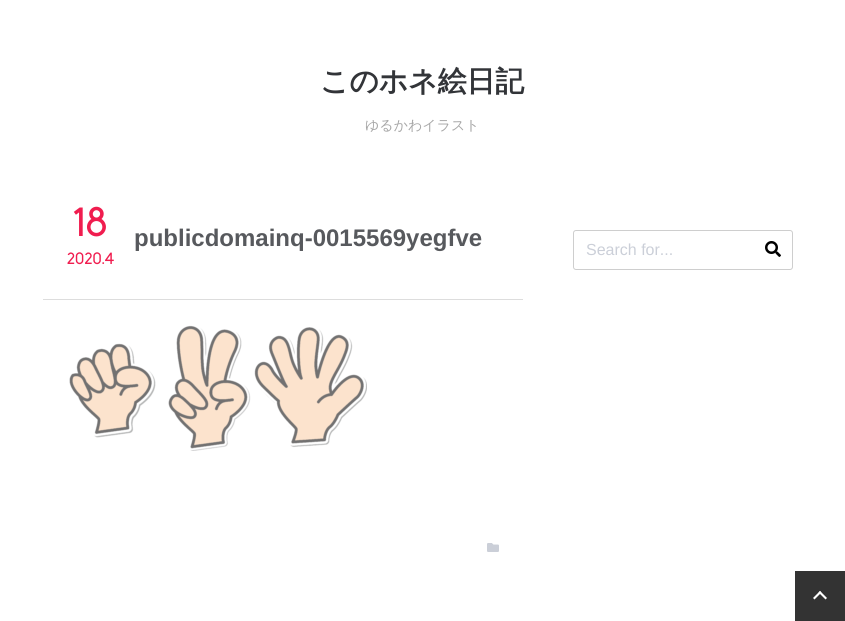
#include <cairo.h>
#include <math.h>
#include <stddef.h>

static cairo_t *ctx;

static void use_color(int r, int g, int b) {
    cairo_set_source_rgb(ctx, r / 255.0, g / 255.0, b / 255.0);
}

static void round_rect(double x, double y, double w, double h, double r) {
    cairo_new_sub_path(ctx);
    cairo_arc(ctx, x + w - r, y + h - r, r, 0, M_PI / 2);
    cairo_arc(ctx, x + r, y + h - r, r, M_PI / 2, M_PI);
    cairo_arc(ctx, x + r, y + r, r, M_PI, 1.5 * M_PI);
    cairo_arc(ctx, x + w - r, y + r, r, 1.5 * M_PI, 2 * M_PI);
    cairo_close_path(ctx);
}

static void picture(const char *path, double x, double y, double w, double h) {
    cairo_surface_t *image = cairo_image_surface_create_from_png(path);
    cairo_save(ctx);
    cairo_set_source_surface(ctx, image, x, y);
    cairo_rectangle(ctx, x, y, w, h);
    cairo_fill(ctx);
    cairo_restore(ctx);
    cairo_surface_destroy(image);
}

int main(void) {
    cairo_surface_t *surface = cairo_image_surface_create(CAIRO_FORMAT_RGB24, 845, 621);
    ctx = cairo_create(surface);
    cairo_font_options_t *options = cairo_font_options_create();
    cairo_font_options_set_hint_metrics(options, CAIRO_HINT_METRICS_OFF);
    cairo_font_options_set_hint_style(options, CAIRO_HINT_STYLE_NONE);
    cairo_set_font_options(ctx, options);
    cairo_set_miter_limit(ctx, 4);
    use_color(255, 255, 255);
    cairo_paint(ctx);
    cairo_select_font_face(ctx, "WenQuanYi Zen Hei", CAIRO_FONT_SLANT_NORMAL, CAIRO_FONT_WEIGHT_BOLD);
    cairo_set_font_size(ctx, 28.75);
    use_color(50, 52, 56);
    cairo_move_to(ctx, 320, 91);
    cairo_show_text(ctx, "このホネ絵日記");
    cairo_select_font_face(ctx, "WenQuanYi Zen Hei Medium", CAIRO_FONT_SLANT_NORMAL, CAIRO_FONT_WEIGHT_NORMAL);
    cairo_set_font_size(ctx, 14);
    use_color(167, 167, 167);
    cairo_move_to(ctx, 365, 130);
    cairo_show_text(ctx, "ゆるかわイラスト");
    use_color(221, 221, 221);
    cairo_rectangle(ctx, 43, 299, 480, 1);
    cairo_fill(ctx);
    cairo_select_font_face(ctx, "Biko", CAIRO_FONT_SLANT_NORMAL, CAIRO_FONT_WEIGHT_NORMAL);
    cairo_set_font_size(ctx, 40);
    use_color(240, 29, 79);
    cairo_move_to(ctx, 72, 236);
    cairo_show_text(ctx, "18");
    cairo_set_font_size(ctx, 16);
    cairo_move_to(ctx, 67, 264);
    cairo_show_text(ctx, "2020.4");
    cairo_select_font_face(ctx, "Liberation Sans", CAIRO_FONT_SLANT_NORMAL, CAIRO_FONT_WEIGHT_BOLD);
    cairo_set_font_size(ctx, 24);
    use_color(87, 89, 93);
    cairo_move_to(ctx, 134, 246);
    cairo_show_text(ctx, "publicdomainq-0015569yegfve");
    picture("img1.png", 69, 325, 298, 126);
    picture("img2.png", 487, 543, 12, 9);
    round_rect(573.5, 230.5, 219, 39, 2.5);
    use_color(206, 206, 206);
    cairo_set_line_width(ctx, 1);
    cairo_stroke(ctx);
    cairo_select_font_face(ctx, "Liberation Sans", CAIRO_FONT_SLANT_NORMAL, CAIRO_FONT_WEIGHT_NORMAL);
    cairo_set_font_size(ctx, 16);
    use_color(203, 207, 216);
    cairo_move_to(ctx, 586, 255);
    cairo_show_text(ctx, "Search for...");
    picture("img3.png", 765, 241, 16, 16);
    use_color(51, 51, 51);
    cairo_rectangle(ctx, 795, 571, 50, 50);
    cairo_fill(ctx);
    use_color(255, 255, 255);
    cairo_new_path(ctx);
    cairo_move_to(ctx, 820, 591);
    cairo_line_to(ctx, 827, 598);
    cairo_line_to(ctx, 825.5, 599.5);
    cairo_line_to(ctx, 818.5, 592.5);
    cairo_close_path(ctx);
    cairo_fill(ctx);
    cairo_new_path(ctx);
    cairo_move_to(ctx, 820, 591);
    cairo_line_to(ctx, 821.5, 592.5);
    cairo_line_to(ctx, 814.5, 599.5);
    cairo_line_to(ctx, 813, 598);
    cairo_close_path(ctx);
    cairo_fill(ctx);
    cairo_surface_write_to_png(surface, "result.png");
    cairo_font_options_destroy(options);
    cairo_destroy(ctx);
    cairo_surface_destroy(surface);
    return 0;
}
